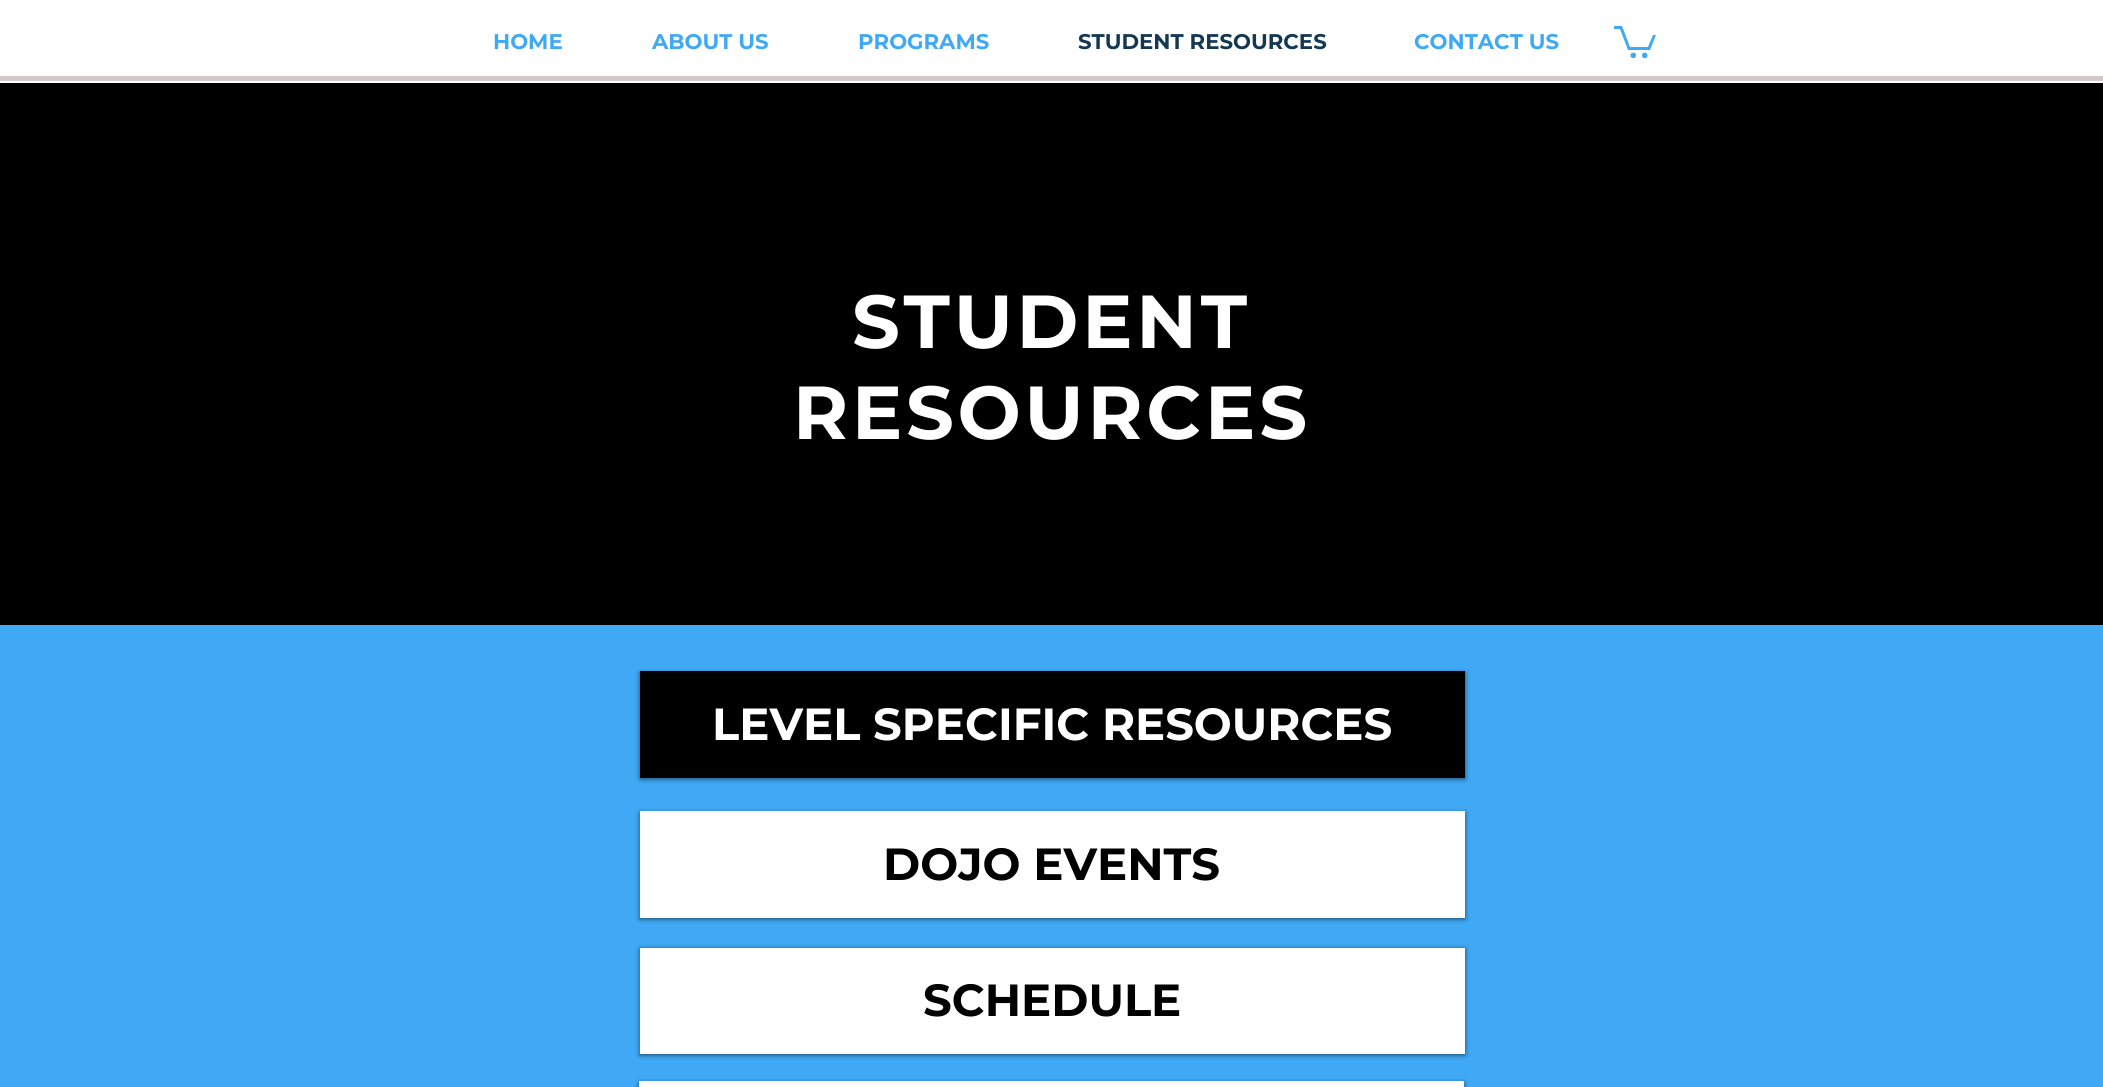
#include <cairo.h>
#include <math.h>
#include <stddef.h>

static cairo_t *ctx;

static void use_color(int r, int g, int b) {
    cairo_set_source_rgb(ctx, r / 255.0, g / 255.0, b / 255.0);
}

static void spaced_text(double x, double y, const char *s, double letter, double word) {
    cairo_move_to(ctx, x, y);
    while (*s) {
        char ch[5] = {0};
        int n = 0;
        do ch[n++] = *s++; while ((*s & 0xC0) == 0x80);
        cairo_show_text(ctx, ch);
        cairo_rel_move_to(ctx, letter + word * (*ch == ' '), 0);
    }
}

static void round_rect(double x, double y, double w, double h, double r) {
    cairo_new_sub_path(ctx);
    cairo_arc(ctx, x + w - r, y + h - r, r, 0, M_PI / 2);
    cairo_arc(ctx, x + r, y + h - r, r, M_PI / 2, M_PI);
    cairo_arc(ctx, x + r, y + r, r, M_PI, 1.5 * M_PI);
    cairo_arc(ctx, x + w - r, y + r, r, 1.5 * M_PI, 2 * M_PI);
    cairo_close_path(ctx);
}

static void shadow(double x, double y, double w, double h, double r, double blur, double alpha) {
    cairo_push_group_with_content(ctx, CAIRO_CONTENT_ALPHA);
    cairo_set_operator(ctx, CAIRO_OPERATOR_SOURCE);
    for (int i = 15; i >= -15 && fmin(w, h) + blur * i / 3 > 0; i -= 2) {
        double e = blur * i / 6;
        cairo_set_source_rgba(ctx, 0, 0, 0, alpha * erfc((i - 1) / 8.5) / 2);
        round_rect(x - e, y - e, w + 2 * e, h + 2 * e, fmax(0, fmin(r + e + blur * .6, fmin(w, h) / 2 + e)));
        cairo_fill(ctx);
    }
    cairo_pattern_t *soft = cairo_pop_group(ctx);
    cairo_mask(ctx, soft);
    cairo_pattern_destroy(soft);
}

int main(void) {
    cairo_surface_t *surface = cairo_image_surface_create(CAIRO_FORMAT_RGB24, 2103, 1087);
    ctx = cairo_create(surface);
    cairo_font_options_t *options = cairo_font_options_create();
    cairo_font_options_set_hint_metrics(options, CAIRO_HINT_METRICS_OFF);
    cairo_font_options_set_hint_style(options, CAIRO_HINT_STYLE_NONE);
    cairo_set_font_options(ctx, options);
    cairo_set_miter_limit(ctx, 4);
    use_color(255, 255, 255);
    cairo_paint(ctx);
    cairo_select_font_face(ctx, "Montserrat", CAIRO_FONT_SLANT_NORMAL, CAIRO_FONT_WEIGHT_BOLD);
    cairo_set_font_size(ctx, 21.25);
    use_color(63, 169, 245);
    cairo_move_to(ctx, 493, 49);
    cairo_show_text(ctx, "HOME");
    cairo_move_to(ctx, 652, 49);
    cairo_show_text(ctx, "ABOUT US");
    cairo_move_to(ctx, 858, 49);
    cairo_show_text(ctx, "PROGRAMS");
    use_color(21, 56, 82);
    cairo_move_to(ctx, 1078, 49);
    cairo_show_text(ctx, "STUDENT RESOURCES");
    use_color(63, 169, 245);
    cairo_move_to(ctx, 1414, 49);
    cairo_show_text(ctx, "CONTACT US");
    cairo_new_path(ctx);
    cairo_move_to(ctx, 1656, 35);
    cairo_line_to(ctx, 1650, 50);
    cairo_line_to(ctx, 1628, 50);
    cairo_line_to(ctx, 1620, 29);
    cairo_line_to(ctx, 1614, 29);
    cairo_line_to(ctx, 1614, 26);
    cairo_line_to(ctx, 1622, 26);
    cairo_line_to(ctx, 1630, 47);
    cairo_line_to(ctx, 1648, 47);
    cairo_line_to(ctx, 1653, 35);
    cairo_fill(ctx);
    cairo_arc(ctx, 1644.7, 55.4, 2.8, 0, 2 * M_PI);
    cairo_fill(ctx);
    cairo_arc(ctx, 1633.3, 55.4, 2.8, 0, 2 * M_PI);
    cairo_fill(ctx);
    use_color(209, 202, 201);
    cairo_rectangle(ctx, 0, 76, 2103, 5);
    cairo_fill(ctx);
    use_color(0, 0, 0);
    cairo_rectangle(ctx, 0, 83, 2103, 542);
    cairo_fill(ctx);
    cairo_set_font_size(ctx, 75);
    use_color(255, 255, 255);
    spaced_text(852, 348, "STUDENT", 3.75, 0);
    spaced_text(793, 439, "RESOURCES", 3.75, 0);
    use_color(63, 169, 245);
    cairo_rectangle(ctx, 0, 625, 2103, 462);
    cairo_fill(ctx);
    use_color(0, 0, 0);
    shadow(640, 673, 825, 106, 0, 2.5, 0.6);
    use_color(0, 0, 0);
    cairo_rectangle(ctx, 640, 671, 825, 107);
    cairo_fill(ctx);
    cairo_set_font_size(ctx, 45);
    use_color(255, 255, 255);
    cairo_move_to(ctx, 712, 740);
    cairo_show_text(ctx, "LEVEL SPECIFIC RESOURCES");
    use_color(0, 0, 0);
    shadow(640, 813, 825, 106, 0, 2.5, 0.6);
    use_color(255, 255, 255);
    cairo_rectangle(ctx, 640, 811, 825, 107);
    cairo_fill(ctx);
    use_color(0, 0, 0);
    cairo_move_to(ctx, 883, 880);
    cairo_show_text(ctx, "DOJO EVENTS");
    use_color(0, 0, 0);
    shadow(640, 949, 825, 106, 0, 2.5, 0.6);
    use_color(255, 255, 255);
    cairo_rectangle(ctx, 640, 948, 825, 106);
    cairo_fill(ctx);
    use_color(0, 0, 0);
    cairo_move_to(ctx, 923, 1016);
    cairo_show_text(ctx, "SCHEDULE");
    use_color(0, 0, 0);
    shadow(639, 1083, 825, 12, 0, 2.5, 0.6);
    use_color(255, 255, 255);
    cairo_rectangle(ctx, 639, 1081, 825, 6);
    cairo_fill(ctx);
    cairo_surface_write_to_png(surface, "result.png");
    cairo_font_options_destroy(options);
    cairo_destroy(ctx);
    cairo_surface_destroy(surface);
    return 0;
}
